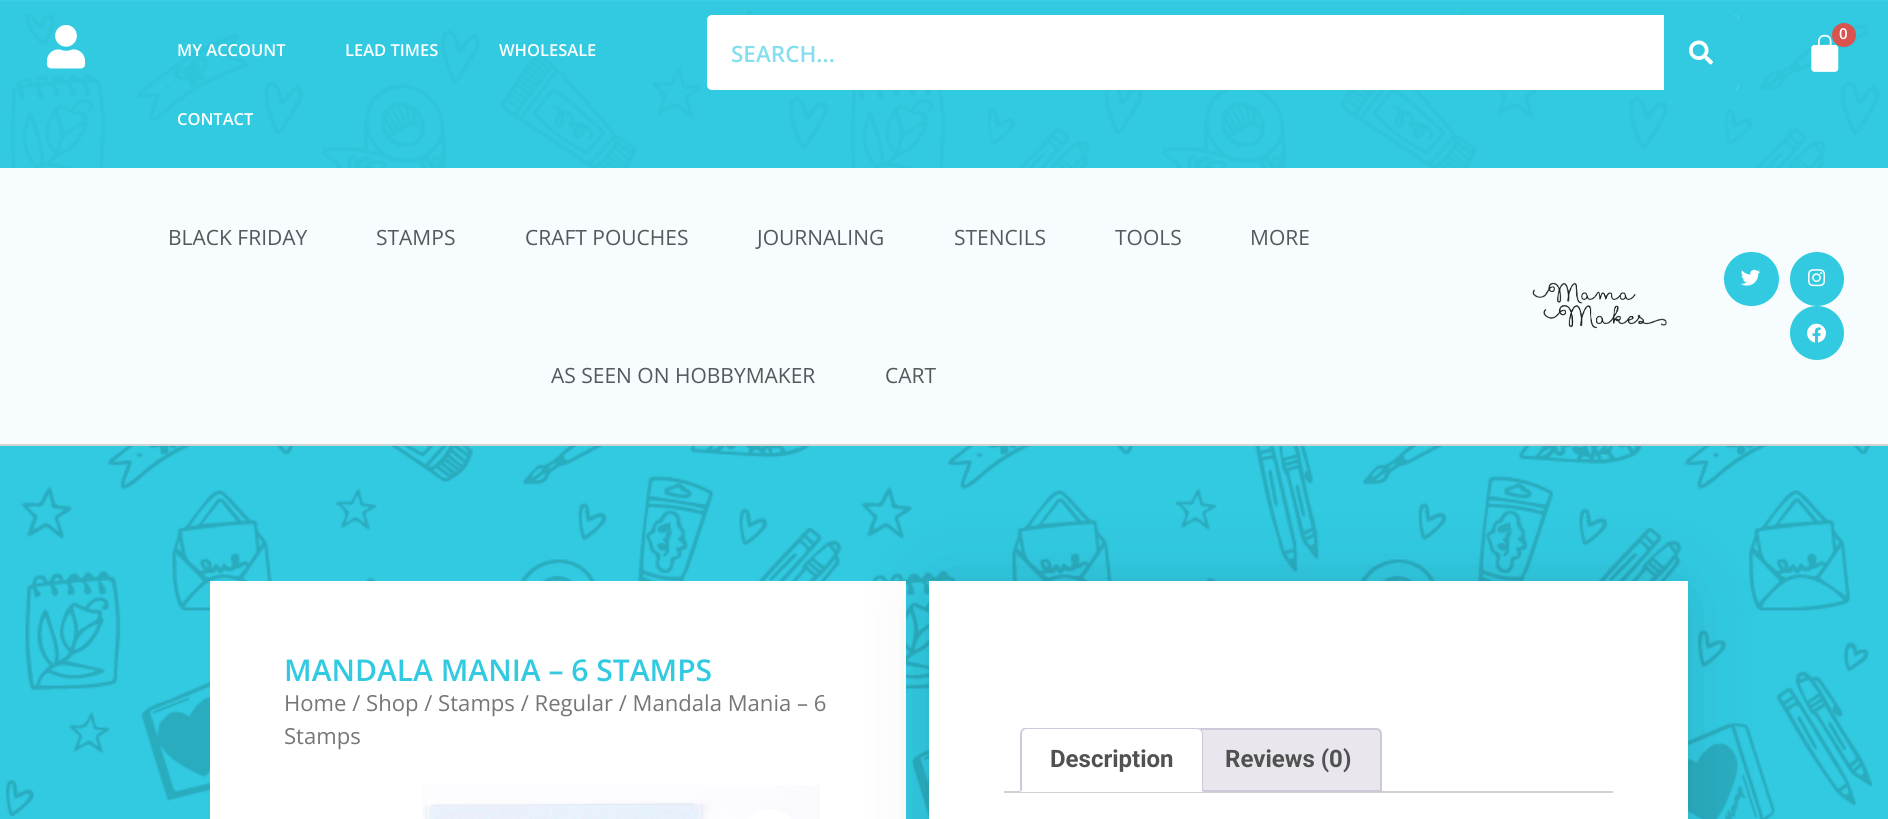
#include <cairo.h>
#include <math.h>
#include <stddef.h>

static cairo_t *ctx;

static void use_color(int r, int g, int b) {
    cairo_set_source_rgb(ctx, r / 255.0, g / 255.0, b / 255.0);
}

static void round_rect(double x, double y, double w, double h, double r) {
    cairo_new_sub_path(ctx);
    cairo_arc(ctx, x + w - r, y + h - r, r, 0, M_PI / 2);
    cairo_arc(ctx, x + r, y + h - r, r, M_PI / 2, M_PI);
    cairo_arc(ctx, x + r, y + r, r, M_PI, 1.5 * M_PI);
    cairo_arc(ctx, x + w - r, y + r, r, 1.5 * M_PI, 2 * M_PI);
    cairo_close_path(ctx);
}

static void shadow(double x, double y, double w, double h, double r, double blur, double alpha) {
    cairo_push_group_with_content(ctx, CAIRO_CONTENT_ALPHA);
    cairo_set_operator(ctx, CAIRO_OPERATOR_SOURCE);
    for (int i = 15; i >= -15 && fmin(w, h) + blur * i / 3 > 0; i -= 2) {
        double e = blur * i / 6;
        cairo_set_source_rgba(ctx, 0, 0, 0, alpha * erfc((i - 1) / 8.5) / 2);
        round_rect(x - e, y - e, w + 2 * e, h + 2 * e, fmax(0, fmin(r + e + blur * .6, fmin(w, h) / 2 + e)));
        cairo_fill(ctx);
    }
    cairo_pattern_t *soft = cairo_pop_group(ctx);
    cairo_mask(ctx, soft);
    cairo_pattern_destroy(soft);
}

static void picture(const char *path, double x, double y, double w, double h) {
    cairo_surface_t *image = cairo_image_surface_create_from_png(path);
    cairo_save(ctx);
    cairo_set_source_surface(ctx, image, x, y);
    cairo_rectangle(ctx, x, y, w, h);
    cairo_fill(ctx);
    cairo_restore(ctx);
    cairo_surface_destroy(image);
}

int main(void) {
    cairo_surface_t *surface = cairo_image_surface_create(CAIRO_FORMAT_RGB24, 1888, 819);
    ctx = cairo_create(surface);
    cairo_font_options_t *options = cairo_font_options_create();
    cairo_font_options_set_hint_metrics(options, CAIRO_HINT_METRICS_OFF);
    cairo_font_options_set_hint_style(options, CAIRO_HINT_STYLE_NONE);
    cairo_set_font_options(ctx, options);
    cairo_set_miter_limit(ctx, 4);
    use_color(255, 255, 255);
    cairo_paint(ctx);
    picture("img1.png", 0, 0, 1888, 819);
    cairo_set_source_rgba(ctx, 0.192, 0.792, 0.882, 0.8);
    cairo_rectangle(ctx, 0, 0, 1888, 168);
    cairo_fill(ctx);
    picture("img2.png", 46, 25, 40, 44);
    picture("img3.png", 1811, 34, 28, 38);
    use_color(217, 83, 79);
    cairo_arc(ctx, 1844, 35, 12, 0, 2 * M_PI);
    cairo_fill(ctx);
    cairo_select_font_face(ctx, "Open Sans SemiBold", CAIRO_FONT_SLANT_NORMAL, CAIRO_FONT_WEIGHT_NORMAL);
    cairo_set_font_size(ctx, 15);
    use_color(255, 255, 255);
    cairo_move_to(ctx, 1839, 39);
    cairo_show_text(ctx, "0");
    cairo_set_font_size(ctx, 16.5);
    cairo_move_to(ctx, 177, 56);
    cairo_show_text(ctx, "MY ACCOUNT");
    cairo_move_to(ctx, 345, 56);
    cairo_show_text(ctx, "LEAD TIMES");
    cairo_move_to(ctx, 499, 56);
    cairo_show_text(ctx, "WHOLESALE");
    cairo_move_to(ctx, 177, 125);
    cairo_show_text(ctx, "CONTACT");
    round_rect(707, 15, 1032, 75, 5);
    cairo_fill(ctx);
    cairo_set_font_size(ctx, 22.5);
    use_color(131, 223, 237);
    cairo_move_to(ctx, 731, 62);
    cairo_show_text(ctx, "SEARCH...");
    use_color(49, 202, 225);
    cairo_new_path(ctx);
    cairo_move_to(ctx, 1664, 15);
    cairo_line_to(ctx, 1734, 15);
    cairo_curve_to(ctx, 1737, 15, 1739, 17, 1739, 20);
    cairo_line_to(ctx, 1739, 85);
    cairo_curve_to(ctx, 1739, 88, 1737, 90, 1734, 90);
    cairo_line_to(ctx, 1664, 90);
    cairo_close_path(ctx);
    cairo_fill(ctx);
    picture("img4.png", 1689, 40, 24, 25);
    cairo_set_source_rgba(ctx, 1, 1, 1, 0.96);
    cairo_rectangle(ctx, 0, 168, 1888, 276);
    cairo_fill(ctx);
    use_color(211, 211, 211);
    cairo_rectangle(ctx, 0, 444, 1888, 2);
    cairo_fill(ctx);
    cairo_select_font_face(ctx, "Open Sans", CAIRO_FONT_SLANT_NORMAL, CAIRO_FONT_WEIGHT_NORMAL);
    cairo_set_font_size(ctx, 21);
    use_color(84, 89, 95);
    cairo_move_to(ctx, 168, 245);
    cairo_show_text(ctx, "BLACK FRIDAY");
    cairo_move_to(ctx, 376, 245);
    cairo_show_text(ctx, "STAMPS");
    cairo_move_to(ctx, 525, 245);
    cairo_show_text(ctx, "CRAFT POUCHES");
    cairo_move_to(ctx, 757, 245);
    cairo_show_text(ctx, "JOURNALING");
    cairo_move_to(ctx, 954, 245);
    cairo_show_text(ctx, "STENCILS");
    cairo_move_to(ctx, 1115, 245);
    cairo_show_text(ctx, "TOOLS");
    cairo_move_to(ctx, 1250, 245);
    cairo_show_text(ctx, "MORE");
    cairo_move_to(ctx, 551, 383);
    cairo_show_text(ctx, "AS SEEN ON HOBBYMAKER");
    cairo_move_to(ctx, 885, 383);
    cairo_show_text(ctx, "CART");
    picture("img5.png", 1532, 282, 135, 47);
    use_color(49, 202, 225);
    round_rect(1724, 252, 55, 54, 27);
    cairo_fill(ctx);
    picture("img6.png", 1740, 269, 21, 17);
    cairo_arc(ctx, 1817, 279, 27, 0, 2 * M_PI);
    cairo_fill(ctx);
    picture("img7.png", 1807, 269, 19, 18);
    cairo_arc(ctx, 1817, 333, 27, 0, 2 * M_PI);
    cairo_fill(ctx);
    picture("img8.png", 1807, 323, 19, 20);
    use_color(255, 255, 255);
    cairo_rectangle(ctx, 210, 581, 696, 238);
    cairo_fill(ctx);
    cairo_select_font_face(ctx, "Open Sans SemiBold", CAIRO_FONT_SLANT_NORMAL, CAIRO_FONT_WEIGHT_NORMAL);
    cairo_set_font_size(ctx, 30);
    use_color(49, 202, 225);
    cairo_move_to(ctx, 284, 681);
    cairo_show_text(ctx, "MANDALA MANIA – 6 STAMPS");
    cairo_select_font_face(ctx, "Open Sans", CAIRO_FONT_SLANT_NORMAL, CAIRO_FONT_WEIGHT_NORMAL);
    cairo_set_font_size(ctx, 22.1);
    use_color(118, 118, 118);
    cairo_move_to(ctx, 284, 711);
    cairo_show_text(ctx, "Home / Shop / Stamps / Regular / Mandala Mania – 6");
    cairo_move_to(ctx, 284, 744);
    cairo_show_text(ctx, "Stamps");
    picture("img9.png", 422, 785, 398, 34);
    use_color(255, 255, 255);
    round_rect(743, 809, 54, 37, 27);
    cairo_fill(ctx);
    use_color(0, 0, 0);
    shadow(944, 596, 729, 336, 0, 37.5, 0.17);
    use_color(255, 255, 255);
    cairo_rectangle(ctx, 929, 581, 759, 238);
    cairo_fill(ctx);
    use_color(211, 206, 210);
    cairo_rectangle(ctx, 1004, 791, 609, 2);
    cairo_fill(ctx);
    use_color(233, 230, 237);
    cairo_new_path(ctx);
    cairo_move_to(ctx, 1200, 729);
    cairo_line_to(ctx, 1376, 729);
    cairo_curve_to(ctx, 1379, 729, 1381, 731, 1381, 734);
    cairo_line_to(ctx, 1381, 791);
    cairo_line_to(ctx, 1195, 791);
    cairo_line_to(ctx, 1195, 734);
    cairo_curve_to(ctx, 1195, 731, 1197, 729, 1200, 729);
    cairo_close_path(ctx);
    cairo_fill_preserve(ctx);
    use_color(207, 200, 216);
    cairo_stroke(ctx);
    use_color(255, 255, 255);
    cairo_new_path(ctx);
    cairo_move_to(ctx, 1026, 728);
    cairo_line_to(ctx, 1197, 728);
    cairo_curve_to(ctx, 1200.5, 728, 1203, 730.5, 1203, 734);
    cairo_line_to(ctx, 1203, 792);
    cairo_line_to(ctx, 1020, 792);
    cairo_line_to(ctx, 1020, 734);
    cairo_curve_to(ctx, 1020, 730.5, 1022.5, 728, 1026, 728);
    cairo_close_path(ctx);
    cairo_fill(ctx);
    use_color(207, 200, 216);
    cairo_new_path(ctx);
    cairo_move_to(ctx, 1026, 728);
    cairo_curve_to(ctx, 1025, 728, 1023, 728, 1022, 729);
    cairo_line_to(ctx, 1023, 731);
    cairo_curve_to(ctx, 1024, 730, 1025, 729, 1026, 729);
    cairo_line_to(ctx, 1197, 729);
    cairo_line_to(ctx, 1200, 730);
    cairo_line_to(ctx, 1201, 729);
    cairo_curve_to(ctx, 1200, 728, 1198, 728, 1197, 728);
    cairo_close_path(ctx);
    cairo_fill(ctx);
    cairo_new_path(ctx);
    cairo_move_to(ctx, 1201, 729);
    cairo_curve_to(ctx, 1202, 730, 1203, 732, 1203, 734);
    cairo_line_to(ctx, 1203, 792);
    cairo_line_to(ctx, 1201, 790);
    cairo_line_to(ctx, 1202, 790);
    cairo_line_to(ctx, 1202, 733);
    cairo_line_to(ctx, 1200, 730);
    cairo_close_path(ctx);
    cairo_fill(ctx);
    use_color(255, 255, 255);
    cairo_new_path(ctx);
    cairo_move_to(ctx, 1203, 792);
    cairo_line_to(ctx, 1201, 790);
    cairo_line_to(ctx, 1022, 790);
    cairo_line_to(ctx, 1020, 792);
    cairo_close_path(ctx);
    cairo_fill(ctx);
    use_color(207, 200, 216);
    cairo_new_path(ctx);
    cairo_move_to(ctx, 1020, 792);
    cairo_line_to(ctx, 1022, 790);
    cairo_line_to(ctx, 1022, 734);
    cairo_curve_to(ctx, 1022, 733, 1022, 731, 1023, 731);
    cairo_line_to(ctx, 1022, 729);
    cairo_curve_to(ctx, 1021, 730, 1020, 732, 1020, 734);
    cairo_close_path(ctx);
    cairo_fill(ctx);
    cairo_select_font_face(ctx, "Roboto", CAIRO_FONT_SLANT_NORMAL, CAIRO_FONT_WEIGHT_BOLD);
    cairo_set_font_size(ctx, 24);
    use_color(81, 81, 81);
    cairo_move_to(ctx, 1050, 767);
    cairo_show_text(ctx, "Description");
    cairo_move_to(ctx, 1225, 767);
    cairo_show_text(ctx, "Reviews (0)");
    cairo_surface_write_to_png(surface, "result.png");
    cairo_font_options_destroy(options);
    cairo_destroy(ctx);
    cairo_surface_destroy(surface);
    return 0;
}
